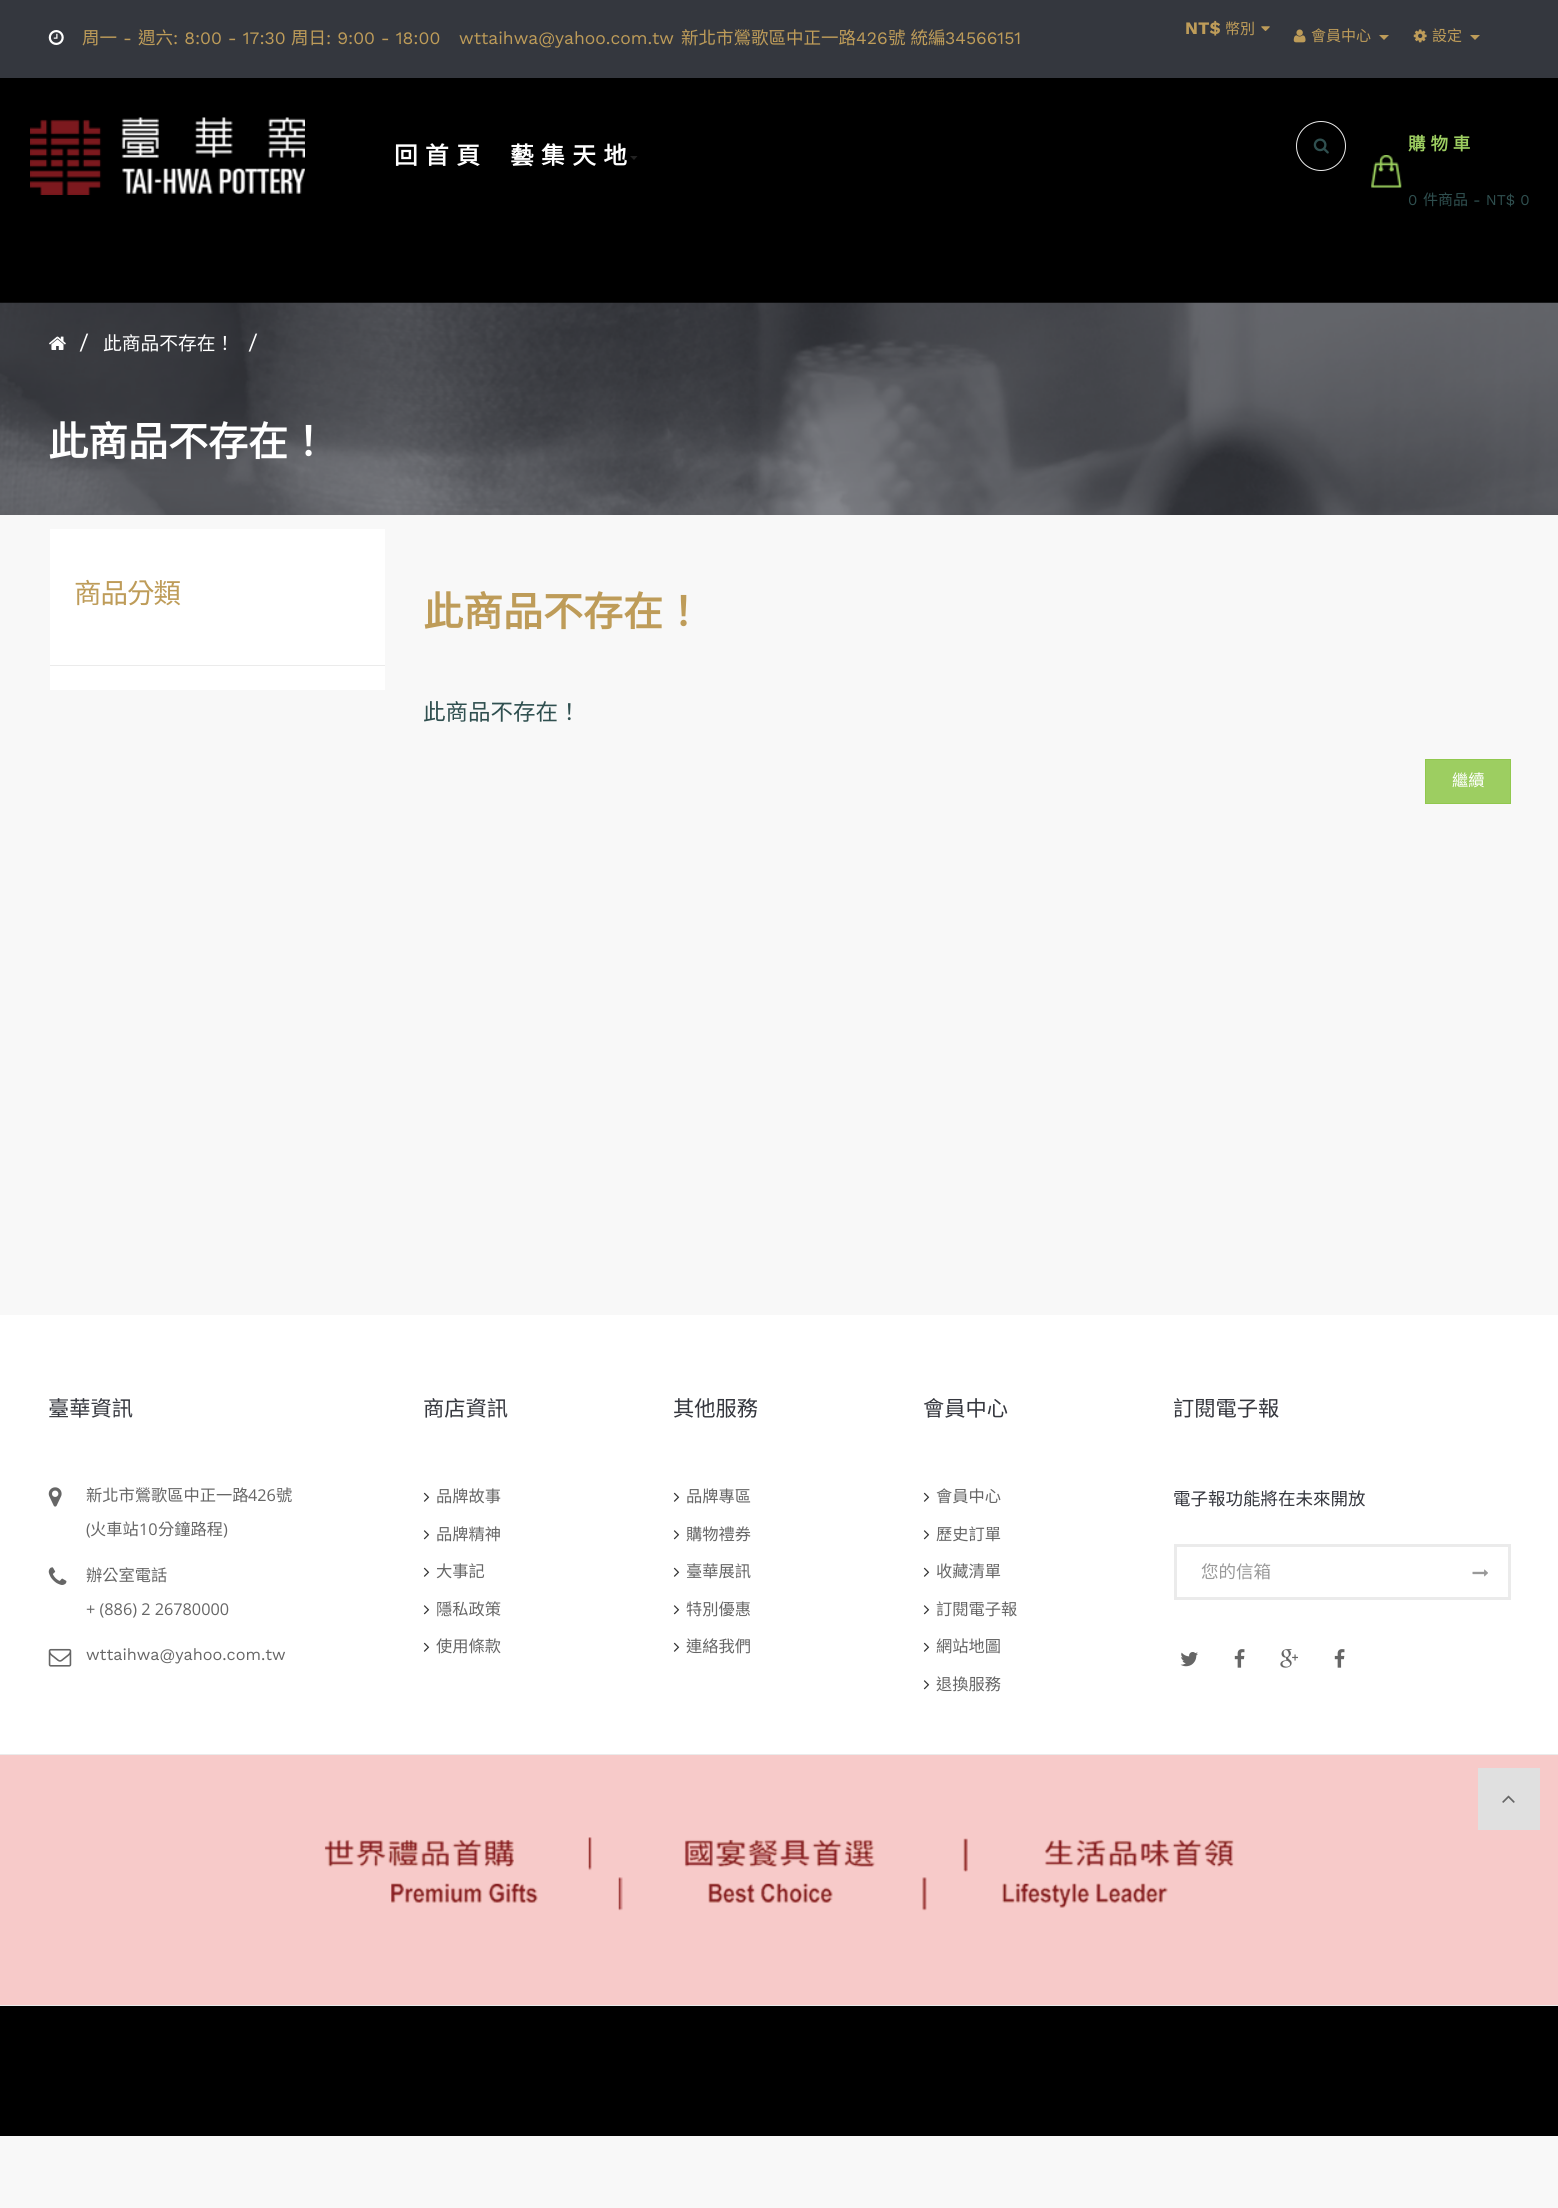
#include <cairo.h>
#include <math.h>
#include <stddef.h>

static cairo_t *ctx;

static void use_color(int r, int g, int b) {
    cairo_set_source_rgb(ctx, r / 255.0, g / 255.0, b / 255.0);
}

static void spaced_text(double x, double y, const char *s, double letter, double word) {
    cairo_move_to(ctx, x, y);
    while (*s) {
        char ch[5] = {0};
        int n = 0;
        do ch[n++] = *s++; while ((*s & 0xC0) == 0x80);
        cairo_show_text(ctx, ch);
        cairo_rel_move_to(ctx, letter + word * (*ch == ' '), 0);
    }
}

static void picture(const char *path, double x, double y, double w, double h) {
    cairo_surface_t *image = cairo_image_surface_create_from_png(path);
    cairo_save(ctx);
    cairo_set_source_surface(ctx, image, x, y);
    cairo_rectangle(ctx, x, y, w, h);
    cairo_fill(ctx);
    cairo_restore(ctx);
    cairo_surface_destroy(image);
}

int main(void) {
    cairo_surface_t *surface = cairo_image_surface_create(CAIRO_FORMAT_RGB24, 1558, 2208);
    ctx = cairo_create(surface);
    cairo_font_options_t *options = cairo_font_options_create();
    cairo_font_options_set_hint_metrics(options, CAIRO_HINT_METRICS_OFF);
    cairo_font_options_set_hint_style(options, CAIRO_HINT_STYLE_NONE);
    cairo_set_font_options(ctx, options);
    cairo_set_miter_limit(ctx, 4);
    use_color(248, 248, 248);
    cairo_paint(ctx);
    use_color(52, 55, 62);
    cairo_rectangle(ctx, 0, 0, 1558, 78);
    cairo_fill(ctx);
    picture("img1.png", 48, 30, 16, 15);
    cairo_select_font_face(ctx, "Noto Sans CJK TC", CAIRO_FONT_SLANT_NORMAL, CAIRO_FONT_WEIGHT_NORMAL);
    cairo_set_font_size(ctx, 17.5);
    use_color(190, 156, 89);
    cairo_move_to(ctx, 82, 44);
    cairo_show_text(ctx, "周一");
    cairo_select_font_face(ctx, "Work Sans", CAIRO_FONT_SLANT_NORMAL, CAIRO_FONT_WEIGHT_NORMAL);
    cairo_move_to(ctx, 123, 44);
    cairo_show_text(ctx, "-");
    cairo_select_font_face(ctx, "Noto Sans CJK TC", CAIRO_FONT_SLANT_NORMAL, CAIRO_FONT_WEIGHT_NORMAL);
    cairo_move_to(ctx, 138, 44);
    cairo_show_text(ctx, "週六");
    cairo_select_font_face(ctx, "Work Sans", CAIRO_FONT_SLANT_NORMAL, CAIRO_FONT_WEIGHT_NORMAL);
    cairo_move_to(ctx, 173, 44);
    cairo_show_text(ctx, ": 8:00 - 17:30");
    cairo_select_font_face(ctx, "Noto Sans CJK TC", CAIRO_FONT_SLANT_NORMAL, CAIRO_FONT_WEIGHT_NORMAL);
    cairo_move_to(ctx, 291, 44);
    cairo_show_text(ctx, "周日");
    cairo_select_font_face(ctx, "Work Sans", CAIRO_FONT_SLANT_NORMAL, CAIRO_FONT_WEIGHT_NORMAL);
    cairo_move_to(ctx, 326, 44);
    cairo_show_text(ctx, ": 9:00 - 18:00");
    cairo_move_to(ctx, 459, 44);
    cairo_show_text(ctx, "wttaihwa@yahoo.com.tw");
    cairo_select_font_face(ctx, "Noto Sans CJK TC", CAIRO_FONT_SLANT_NORMAL, CAIRO_FONT_WEIGHT_NORMAL);
    cairo_move_to(ctx, 681, 44);
    cairo_show_text(ctx, "新北市鶯歌區中正一路");
    cairo_select_font_face(ctx, "Work Sans", CAIRO_FONT_SLANT_NORMAL, CAIRO_FONT_WEIGHT_NORMAL);
    cairo_move_to(ctx, 856, 44);
    cairo_show_text(ctx, "426");
    cairo_select_font_face(ctx, "Noto Sans CJK TC", CAIRO_FONT_SLANT_NORMAL, CAIRO_FONT_WEIGHT_NORMAL);
    spaced_text(888, 44, "號 統編", 0, 1);
    cairo_select_font_face(ctx, "Work Sans", CAIRO_FONT_SLANT_NORMAL, CAIRO_FONT_WEIGHT_NORMAL);
    cairo_move_to(ctx, 945, 44);
    cairo_show_text(ctx, "34566151");
    cairo_select_font_face(ctx, "Work Sans", CAIRO_FONT_SLANT_NORMAL, CAIRO_FONT_WEIGHT_BOLD);
    cairo_move_to(ctx, 1185, 34);
    cairo_show_text(ctx, "NT$");
    cairo_select_font_face(ctx, "Noto Sans CJK TC", CAIRO_FONT_SLANT_NORMAL, CAIRO_FONT_WEIGHT_NORMAL);
    cairo_set_font_size(ctx, 15);
    cairo_move_to(ctx, 1225, 34);
    cairo_show_text(ctx, "幣別");
    picture("img2.png", 1261, 26, 9, 5);
    picture("img3.png", 1293, 29, 13, 14);
    cairo_move_to(ctx, 1311, 41);
    cairo_show_text(ctx, "會員中心");
    cairo_new_path(ctx);
    cairo_move_to(ctx, 1379, 35);
    cairo_line_to(ctx, 1389, 35);
    cairo_line_to(ctx, 1384, 40);
    cairo_close_path(ctx);
    cairo_fill(ctx);
    picture("img4.png", 1413, 29, 14, 14);
    cairo_move_to(ctx, 1432, 41);
    cairo_show_text(ctx, "設定");
    cairo_new_path(ctx);
    cairo_move_to(ctx, 1470, 35);
    cairo_line_to(ctx, 1480, 35);
    cairo_line_to(ctx, 1475, 40);
    cairo_close_path(ctx);
    cairo_fill(ctx);
    use_color(0, 0, 0);
    cairo_rectangle(ctx, 0, 78, 1558, 225);
    cairo_fill(ctx);
    picture("img5.png", 30, 117, 275, 78);
    cairo_select_font_face(ctx, "Noto Sans CJK TC", CAIRO_FONT_SLANT_NORMAL, CAIRO_FONT_WEIGHT_BOLD);
    cairo_set_font_size(ctx, 23.75);
    use_color(255, 255, 255);
    spaced_text(394, 164, "回 首 頁", 0, 2);
    spaced_text(510, 164, "藝 集 天 地", 0, 2);
    use_color(34, 34, 34);
    cairo_new_path(ctx);
    cairo_move_to(ctx, 630, 156);
    cairo_line_to(ctx, 637.5, 156);
    cairo_line_to(ctx, 634, 160);
    cairo_close_path(ctx);
    cairo_fill(ctx);
    cairo_arc(ctx, 1321, 146, 24.5, 0, 2 * M_PI);
    use_color(235, 235, 235);
    cairo_set_line_width(ctx, 1);
    cairo_stroke(ctx);
    picture("img6.png", 1313, 138, 16, 16);
    picture("img7.png", 1371, 155, 31, 33);
    cairo_set_font_size(ctx, 17.5);
    use_color(157, 206, 97);
    spaced_text(1408, 150, "購 物 車", 0, 1);
    cairo_select_font_face(ctx, "Work Sans", CAIRO_FONT_SLANT_NORMAL, CAIRO_FONT_WEIGHT_NORMAL);
    cairo_set_font_size(ctx, 15);
    use_color(47, 79, 79);
    cairo_move_to(ctx, 1408, 205);
    cairo_show_text(ctx, "0");
    cairo_select_font_face(ctx, "Noto Sans CJK TC", CAIRO_FONT_SLANT_NORMAL, CAIRO_FONT_WEIGHT_NORMAL);
    cairo_move_to(ctx, 1423, 205);
    cairo_show_text(ctx, "件商品");
    cairo_select_font_face(ctx, "Work Sans", CAIRO_FONT_SLANT_NORMAL, CAIRO_FONT_WEIGHT_NORMAL);
    cairo_move_to(ctx, 1473, 205);
    cairo_show_text(ctx, "- NT$ 0");
    picture("img8.png", 0, 302, 1558, 213);
    picture("img9.png", 49, 336, 17, 14);
    cairo_set_font_size(ctx, 22.5);
    use_color(255, 255, 255);
    cairo_move_to(ctx, 79, 350);
    cairo_show_text(ctx, "/");
    cairo_select_font_face(ctx, "Noto Sans CJK TC", CAIRO_FONT_SLANT_NORMAL, CAIRO_FONT_WEIGHT_NORMAL);
    cairo_set_font_size(ctx, 18.75);
    cairo_move_to(ctx, 103, 350);
    cairo_show_text(ctx, "此商品不存在！");
    cairo_select_font_face(ctx, "Work Sans", CAIRO_FONT_SLANT_NORMAL, CAIRO_FONT_WEIGHT_NORMAL);
    cairo_set_font_size(ctx, 22.5);
    cairo_move_to(ctx, 248, 350);
    cairo_show_text(ctx, "/");
    cairo_select_font_face(ctx, "Noto Sans CJK TC", CAIRO_FONT_SLANT_NORMAL, CAIRO_FONT_WEIGHT_BOLD);
    cairo_set_font_size(ctx, 40);
    cairo_move_to(ctx, 48, 456);
    cairo_show_text(ctx, "此商品不存在！");
    use_color(235, 235, 235);
    cairo_rectangle(ctx, 50, 665, 335, 1);
    cairo_fill(ctx);
    use_color(255, 255, 255);
    cairo_rectangle(ctx, 50, 529, 335, 136);
    cairo_fill(ctx);
    cairo_select_font_face(ctx, "Noto Sans CJK TC", CAIRO_FONT_SLANT_NORMAL, CAIRO_FONT_WEIGHT_NORMAL);
    cairo_set_font_size(ctx, 27.5);
    use_color(190, 156, 89);
    spaced_text(74, 603, "商品分類", -1, 0);
    use_color(255, 255, 255);
    cairo_rectangle(ctx, 50, 666, 335, 24);
    cairo_fill(ctx);
    cairo_select_font_face(ctx, "Noto Sans CJK TC", CAIRO_FONT_SLANT_NORMAL, CAIRO_FONT_WEIGHT_BOLD);
    cairo_set_font_size(ctx, 40);
    use_color(190, 156, 89);
    cairo_move_to(ctx, 423, 626);
    cairo_show_text(ctx, "此商品不存在！");
    cairo_select_font_face(ctx, "Noto Sans CJK TC", CAIRO_FONT_SLANT_NORMAL, CAIRO_FONT_WEIGHT_NORMAL);
    cairo_set_font_size(ctx, 22.5);
    use_color(47, 79, 79);
    cairo_move_to(ctx, 423, 720);
    cairo_show_text(ctx, "此商品不存在！");
    use_color(157, 206, 97);
    cairo_rectangle(ctx, 1425.5, 759.5, 85, 44);
    cairo_fill_preserve(ctx);
    use_color(145, 200, 78);
    cairo_stroke(ctx);
    cairo_set_font_size(ctx, 16.25);
    use_color(255, 255, 255);
    cairo_move_to(ctx, 1452, 786);
    cairo_show_text(ctx, "繼續");
    cairo_rectangle(ctx, 0, 1315, 1558, 439);
    cairo_fill(ctx);
    cairo_set_font_size(ctx, 21.25);
    use_color(53, 55, 62);
    cairo_move_to(ctx, 48, 1416);
    cairo_show_text(ctx, "臺華資訊");
    picture("img10.png", 48, 1487, 14, 20);
    cairo_set_font_size(ctx, 16.25);
    use_color(102, 102, 102);
    cairo_move_to(ctx, 86, 1501);
    cairo_show_text(ctx, "新北市鶯歌區中正一路");
    cairo_select_font_face(ctx, "Open Sans", CAIRO_FONT_SLANT_NORMAL, CAIRO_FONT_WEIGHT_NORMAL);
    cairo_move_to(ctx, 248, 1501);
    cairo_show_text(ctx, "426");
    cairo_select_font_face(ctx, "Noto Sans CJK TC", CAIRO_FONT_SLANT_NORMAL, CAIRO_FONT_WEIGHT_NORMAL);
    cairo_move_to(ctx, 276, 1501);
    cairo_show_text(ctx, "號");
    cairo_select_font_face(ctx, "Open Sans", CAIRO_FONT_SLANT_NORMAL, CAIRO_FONT_WEIGHT_NORMAL);
    cairo_move_to(ctx, 86, 1535);
    cairo_show_text(ctx, "(");
    cairo_select_font_face(ctx, "Noto Sans CJK TC", CAIRO_FONT_SLANT_NORMAL, CAIRO_FONT_WEIGHT_NORMAL);
    cairo_move_to(ctx, 90, 1535);
    cairo_show_text(ctx, "火車站");
    cairo_select_font_face(ctx, "Open Sans", CAIRO_FONT_SLANT_NORMAL, CAIRO_FONT_WEIGHT_NORMAL);
    cairo_move_to(ctx, 139, 1535);
    cairo_show_text(ctx, "10");
    cairo_select_font_face(ctx, "Noto Sans CJK TC", CAIRO_FONT_SLANT_NORMAL, CAIRO_FONT_WEIGHT_NORMAL);
    cairo_move_to(ctx, 158, 1535);
    cairo_show_text(ctx, "分鐘路程");
    cairo_select_font_face(ctx, "Open Sans", CAIRO_FONT_SLANT_NORMAL, CAIRO_FONT_WEIGHT_NORMAL);
    cairo_move_to(ctx, 223, 1535);
    cairo_show_text(ctx, ")");
    picture("img11.png", 48, 1567, 19, 18);
    cairo_select_font_face(ctx, "Noto Sans CJK TC", CAIRO_FONT_SLANT_NORMAL, CAIRO_FONT_WEIGHT_NORMAL);
    cairo_move_to(ctx, 86, 1581);
    cairo_show_text(ctx, "辦公室電話");
    cairo_select_font_face(ctx, "Open Sans", CAIRO_FONT_SLANT_NORMAL, CAIRO_FONT_WEIGHT_NORMAL);
    cairo_move_to(ctx, 86, 1615);
    cairo_show_text(ctx, "+ (886) 2 26780000");
    picture("img12.png", 48, 1648, 24, 19);
    cairo_select_font_face(ctx, "Work Sans", CAIRO_FONT_SLANT_NORMAL, CAIRO_FONT_WEIGHT_NORMAL);
    cairo_move_to(ctx, 86, 1660);
    cairo_show_text(ctx, "wttaihwa@yahoo.com.tw");
    cairo_select_font_face(ctx, "Noto Sans CJK TC", CAIRO_FONT_SLANT_NORMAL, CAIRO_FONT_WEIGHT_NORMAL);
    cairo_set_font_size(ctx, 21.25);
    use_color(53, 55, 62);
    cairo_move_to(ctx, 423, 1416);
    cairo_show_text(ctx, "商店資訊");
    picture("img13.png", 423, 1492, 7, 10);
    cairo_set_font_size(ctx, 16.25);
    use_color(102, 102, 102);
    cairo_move_to(ctx, 436, 1502);
    cairo_show_text(ctx, "品牌故事");
    picture("img14.png", 423, 1530, 7, 10);
    cairo_move_to(ctx, 436, 1540);
    cairo_show_text(ctx, "品牌精神");
    picture("img13.png", 423, 1567, 7, 10);
    cairo_move_to(ctx, 436, 1577);
    cairo_show_text(ctx, "大事記");
    picture("img14.png", 423, 1605, 7, 10);
    cairo_move_to(ctx, 436, 1615);
    cairo_show_text(ctx, "隱私政策");
    picture("img13.png", 423, 1642, 7, 10);
    cairo_move_to(ctx, 436, 1652);
    cairo_show_text(ctx, "使用條款");
    cairo_set_font_size(ctx, 21.25);
    use_color(53, 55, 62);
    cairo_move_to(ctx, 673, 1416);
    cairo_show_text(ctx, "其他服務");
    picture("img13.png", 673, 1492, 7, 10);
    cairo_set_font_size(ctx, 16.25);
    use_color(102, 102, 102);
    cairo_move_to(ctx, 686, 1502);
    cairo_show_text(ctx, "品牌專區");
    picture("img14.png", 673, 1530, 7, 10);
    cairo_move_to(ctx, 686, 1540);
    cairo_show_text(ctx, "購物禮券");
    picture("img13.png", 673, 1567, 7, 10);
    cairo_move_to(ctx, 686, 1577);
    cairo_show_text(ctx, "臺華展訊");
    picture("img14.png", 673, 1605, 7, 10);
    cairo_move_to(ctx, 686, 1615);
    cairo_show_text(ctx, "特別優惠");
    picture("img13.png", 673, 1642, 7, 10);
    cairo_move_to(ctx, 686, 1652);
    cairo_show_text(ctx, "連絡我們");
    cairo_set_font_size(ctx, 21.25);
    use_color(53, 55, 62);
    cairo_move_to(ctx, 923, 1416);
    cairo_show_text(ctx, "會員中心");
    picture("img13.png", 923, 1492, 7, 10);
    cairo_set_font_size(ctx, 16.25);
    use_color(102, 102, 102);
    cairo_move_to(ctx, 936, 1502);
    cairo_show_text(ctx, "會員中心");
    picture("img14.png", 923, 1530, 7, 10);
    cairo_move_to(ctx, 936, 1540);
    cairo_show_text(ctx, "歷史訂單");
    picture("img13.png", 923, 1567, 7, 10);
    cairo_move_to(ctx, 936, 1577);
    cairo_show_text(ctx, "收藏清單");
    picture("img14.png", 923, 1605, 7, 10);
    cairo_move_to(ctx, 936, 1615);
    cairo_show_text(ctx, "訂閱電子報");
    picture("img13.png", 923, 1642, 7, 10);
    cairo_move_to(ctx, 936, 1652);
    cairo_show_text(ctx, "網站地圖");
    picture("img14.png", 923, 1680, 7, 10);
    cairo_move_to(ctx, 936, 1690);
    cairo_show_text(ctx, "退換服務");
    cairo_set_font_size(ctx, 21.25);
    use_color(53, 55, 62);
    cairo_move_to(ctx, 1173, 1416);
    cairo_show_text(ctx, "訂閱電子報");
    cairo_set_font_size(ctx, 17.5);
    cairo_move_to(ctx, 1173, 1505);
    cairo_show_text(ctx, "電子報功能將在未來開放");
    cairo_rectangle(ctx, 1175.5, 1545.5, 334, 53);
    use_color(235, 235, 235);
    cairo_set_line_width(ctx, 3);
    cairo_stroke(ctx);
    use_color(153, 153, 153);
    cairo_move_to(ctx, 1201, 1578);
    cairo_show_text(ctx, "您的信箱");
    picture("img15.png", 1472, 1569, 16, 8);
    picture("img16.png", 1180, 1652, 18, 15);
    picture("img17.png", 1234, 1649, 11, 19);
    picture("img18.png", 1280, 1649, 18, 19);
    picture("img17.png", 1334, 1649, 11, 19);
    use_color(247, 202, 201);
    cairo_rectangle(ctx, 0, 1755, 1558, 250);
    cairo_fill(ctx);
    use_color(235, 235, 235);
    cairo_rectangle(ctx, 0, 1754, 1558, 1);
    cairo_fill(ctx);
    cairo_rectangle(ctx, 0, 2005, 1558, 1);
    cairo_fill(ctx);
    picture("img19.png", 324, 1837, 910, 74);
    use_color(0, 0, 0);
    cairo_rectangle(ctx, 0, 2006, 1558, 130);
    cairo_fill(ctx);
    use_color(224, 224, 224);
    cairo_rectangle(ctx, 1478, 1768, 62, 62);
    cairo_fill(ctx);
    picture("img20.png", 1502, 1795, 13, 8);
    cairo_surface_write_to_png(surface, "result.png");
    cairo_font_options_destroy(options);
    cairo_destroy(ctx);
    cairo_surface_destroy(surface);
    return 0;
}
